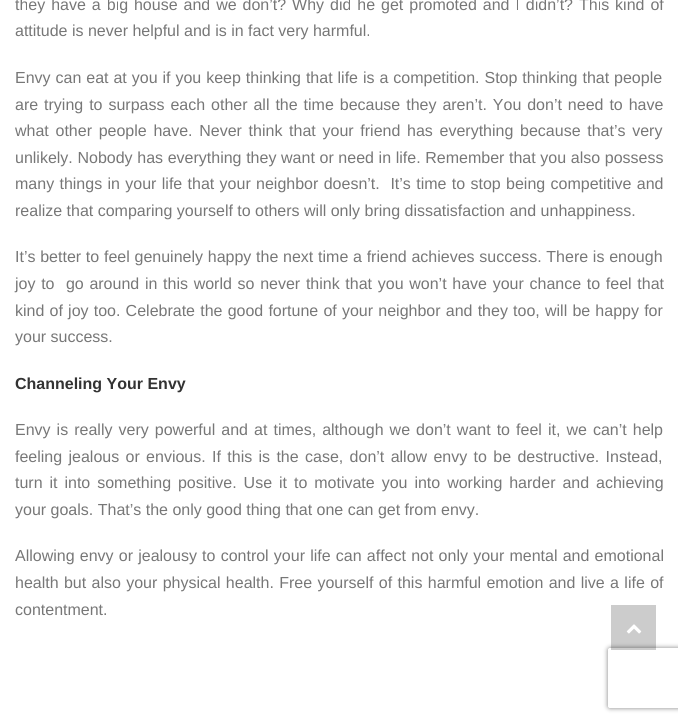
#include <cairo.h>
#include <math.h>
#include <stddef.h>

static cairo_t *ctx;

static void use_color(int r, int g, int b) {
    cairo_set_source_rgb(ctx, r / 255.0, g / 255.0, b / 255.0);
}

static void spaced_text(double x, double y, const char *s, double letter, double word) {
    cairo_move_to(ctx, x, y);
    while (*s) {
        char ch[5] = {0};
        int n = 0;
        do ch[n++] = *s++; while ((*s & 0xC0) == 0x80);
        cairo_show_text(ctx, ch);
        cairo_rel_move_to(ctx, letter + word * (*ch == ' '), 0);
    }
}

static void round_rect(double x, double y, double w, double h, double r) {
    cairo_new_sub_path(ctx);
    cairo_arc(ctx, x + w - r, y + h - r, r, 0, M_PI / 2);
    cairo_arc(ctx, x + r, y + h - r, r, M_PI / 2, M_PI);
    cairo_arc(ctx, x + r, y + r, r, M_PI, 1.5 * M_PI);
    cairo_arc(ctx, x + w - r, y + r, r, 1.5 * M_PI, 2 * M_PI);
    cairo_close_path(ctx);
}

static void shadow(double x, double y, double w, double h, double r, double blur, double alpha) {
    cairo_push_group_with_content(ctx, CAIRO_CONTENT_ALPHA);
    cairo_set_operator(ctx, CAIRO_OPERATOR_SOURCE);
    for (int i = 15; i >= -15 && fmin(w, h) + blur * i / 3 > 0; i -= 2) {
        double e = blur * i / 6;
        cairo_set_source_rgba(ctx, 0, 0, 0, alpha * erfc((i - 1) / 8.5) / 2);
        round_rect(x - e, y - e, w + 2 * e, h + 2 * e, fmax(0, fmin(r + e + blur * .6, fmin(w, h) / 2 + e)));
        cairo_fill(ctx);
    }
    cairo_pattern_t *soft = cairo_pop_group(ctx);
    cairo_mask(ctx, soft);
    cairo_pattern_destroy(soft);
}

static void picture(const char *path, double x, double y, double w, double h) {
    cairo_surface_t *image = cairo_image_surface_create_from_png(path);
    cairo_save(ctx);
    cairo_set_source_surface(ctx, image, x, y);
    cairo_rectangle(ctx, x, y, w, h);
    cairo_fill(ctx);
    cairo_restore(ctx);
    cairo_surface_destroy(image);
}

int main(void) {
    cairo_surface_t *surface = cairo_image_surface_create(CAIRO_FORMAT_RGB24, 678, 722);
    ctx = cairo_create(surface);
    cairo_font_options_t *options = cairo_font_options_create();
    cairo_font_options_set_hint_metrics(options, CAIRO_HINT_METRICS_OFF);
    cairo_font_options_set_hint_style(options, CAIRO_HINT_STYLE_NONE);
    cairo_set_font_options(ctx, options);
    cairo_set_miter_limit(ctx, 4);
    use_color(255, 255, 255);
    cairo_paint(ctx);
    cairo_select_font_face(ctx, "Liberation Sans", CAIRO_FONT_SLANT_NORMAL, CAIRO_FONT_WEIGHT_NORMAL);
    cairo_set_font_size(ctx, 16);
    use_color(119, 119, 119);
    spaced_text(15, 10, "they have a big house and we don’t? Why did he get promoted and I didn’t? This kind of", 0, 1.5);
    cairo_move_to(ctx, 15, 36);
    cairo_show_text(ctx, "attitude is never helpful and is in fact very harmful.");
    spaced_text(15, 83, "Envy can eat at you if you keep thinking that life is a competition. Stop thinking that people", 0, 0.5);
    spaced_text(15, 110, "are trying to surpass each other all the time because they aren’t. You don’t need to have", 0, 1.5);
    spaced_text(15, 136, "what other people have. Never think that your friend has everything because that’s very", 0, 2.25);
    spaced_text(15, 163, "unlikely. Nobody has everything they want or need in life. Remember that you also possess", 0, 0.2);
    spaced_text(15, 189, "many things in your life that your neighbor doesn’t.  It’s time to stop being competitive and", 0, 0.9);
    cairo_move_to(ctx, 15, 216);
    cairo_show_text(ctx, "realize that comparing yourself to others will only bring dissatisfaction and unhappiness.");
    spaced_text(15, 262, "It’s better to feel genuinely happy the next time a friend achieves success. There is enough", 0, 0.3);
    spaced_text(15, 289, "joy to  go around in this world so never think that you won’t have your chance to feel that", 0, 1.25);
    spaced_text(15, 316, "kind of joy too. Celebrate the good fortune of your neighbor and they too, will be happy for", 0, 0.75);
    cairo_move_to(ctx, 15, 342);
    cairo_show_text(ctx, "your success.");
    cairo_select_font_face(ctx, "Liberation Sans", CAIRO_FONT_SLANT_NORMAL, CAIRO_FONT_WEIGHT_BOLD);
    use_color(51, 51, 51);
    cairo_move_to(ctx, 15, 389);
    cairo_show_text(ctx, "Channeling Your Envy");
    cairo_select_font_face(ctx, "Liberation Sans", CAIRO_FONT_SLANT_NORMAL, CAIRO_FONT_WEIGHT_NORMAL);
    use_color(119, 119, 119);
    spaced_text(15, 435, "Envy is really very powerful and at times, although we don’t want to feel it, we can’t help", 0, 1.6);
    spaced_text(15, 462, "feeling jealous or envious. If this is the case, don’t allow envy to be destructive. Instead,", 0, 1.9);
    spaced_text(15, 488, "turn it into something positive. Use it to motivate you into working harder and achieving", 0, 2.5);
    cairo_move_to(ctx, 15, 515);
    cairo_show_text(ctx, "your goals. That’s the only good thing that one can get from envy.");
    spaced_text(15, 561, "Allowing envy or jealousy to control your life can affect not only your mental and emotional", 0, 0.75);
    spaced_text(15, 588, "health but also your physical health. Free yourself of this harmful emotion and live a life of", 0, 0.9);
    cairo_move_to(ctx, 15, 615);
    cairo_show_text(ctx, "contentment.");
    cairo_save(ctx);
    cairo_set_fill_rule(ctx, CAIRO_FILL_RULE_EVEN_ODD);
    cairo_new_path(ctx);
    cairo_move_to(ctx, 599, 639);
    cairo_line_to(ctx, 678, 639);
    cairo_line_to(ctx, 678, 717);
    cairo_line_to(ctx, 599, 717);
    cairo_close_path(ctx);
    cairo_move_to(ctx, 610, 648);
    cairo_line_to(ctx, 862, 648);
    cairo_curve_to(ctx, 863, 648, 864, 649, 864, 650);
    cairo_line_to(ctx, 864, 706);
    cairo_curve_to(ctx, 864, 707, 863, 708, 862, 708);
    cairo_line_to(ctx, 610, 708);
    cairo_curve_to(ctx, 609, 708, 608, 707, 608, 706);
    cairo_line_to(ctx, 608, 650);
    cairo_curve_to(ctx, 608, 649, 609, 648, 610, 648);
    cairo_close_path(ctx);
    cairo_clip(ctx);
    use_color(128, 128, 128);
    shadow(608, 648, 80, 60, 2, 2.5, 1);
    cairo_restore(ctx);
    cairo_set_source_rgba(ctx, 0, 0, 0, 0.2);
    cairo_rectangle(ctx, 611, 605, 45, 45);
    cairo_fill(ctx);
    picture("img1.png", 626, 624, 16, 10);
    cairo_surface_write_to_png(surface, "result.png");
    cairo_font_options_destroy(options);
    cairo_destroy(ctx);
    cairo_surface_destroy(surface);
    return 0;
}
